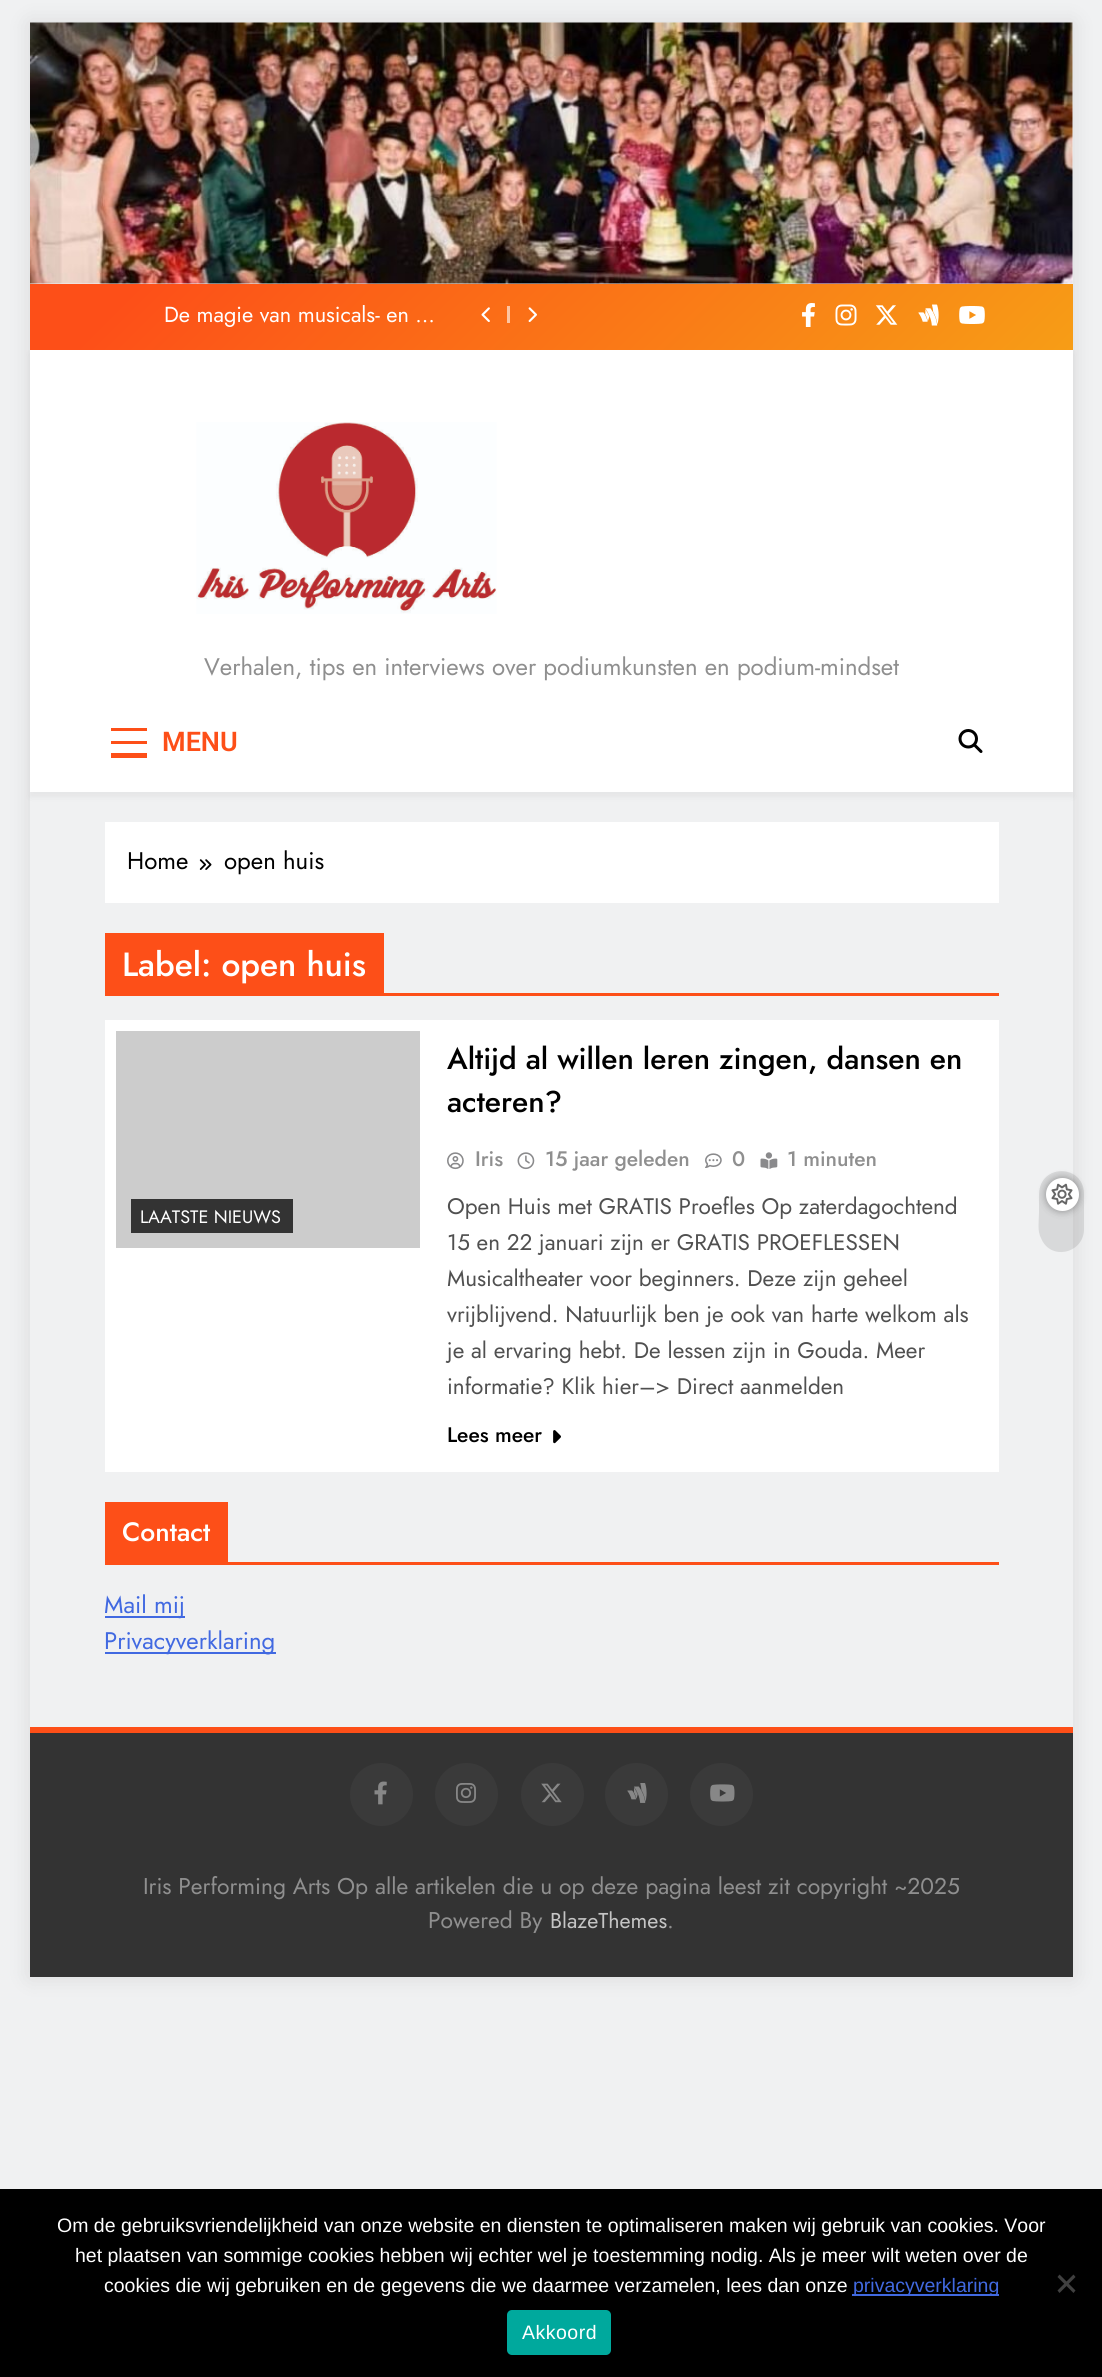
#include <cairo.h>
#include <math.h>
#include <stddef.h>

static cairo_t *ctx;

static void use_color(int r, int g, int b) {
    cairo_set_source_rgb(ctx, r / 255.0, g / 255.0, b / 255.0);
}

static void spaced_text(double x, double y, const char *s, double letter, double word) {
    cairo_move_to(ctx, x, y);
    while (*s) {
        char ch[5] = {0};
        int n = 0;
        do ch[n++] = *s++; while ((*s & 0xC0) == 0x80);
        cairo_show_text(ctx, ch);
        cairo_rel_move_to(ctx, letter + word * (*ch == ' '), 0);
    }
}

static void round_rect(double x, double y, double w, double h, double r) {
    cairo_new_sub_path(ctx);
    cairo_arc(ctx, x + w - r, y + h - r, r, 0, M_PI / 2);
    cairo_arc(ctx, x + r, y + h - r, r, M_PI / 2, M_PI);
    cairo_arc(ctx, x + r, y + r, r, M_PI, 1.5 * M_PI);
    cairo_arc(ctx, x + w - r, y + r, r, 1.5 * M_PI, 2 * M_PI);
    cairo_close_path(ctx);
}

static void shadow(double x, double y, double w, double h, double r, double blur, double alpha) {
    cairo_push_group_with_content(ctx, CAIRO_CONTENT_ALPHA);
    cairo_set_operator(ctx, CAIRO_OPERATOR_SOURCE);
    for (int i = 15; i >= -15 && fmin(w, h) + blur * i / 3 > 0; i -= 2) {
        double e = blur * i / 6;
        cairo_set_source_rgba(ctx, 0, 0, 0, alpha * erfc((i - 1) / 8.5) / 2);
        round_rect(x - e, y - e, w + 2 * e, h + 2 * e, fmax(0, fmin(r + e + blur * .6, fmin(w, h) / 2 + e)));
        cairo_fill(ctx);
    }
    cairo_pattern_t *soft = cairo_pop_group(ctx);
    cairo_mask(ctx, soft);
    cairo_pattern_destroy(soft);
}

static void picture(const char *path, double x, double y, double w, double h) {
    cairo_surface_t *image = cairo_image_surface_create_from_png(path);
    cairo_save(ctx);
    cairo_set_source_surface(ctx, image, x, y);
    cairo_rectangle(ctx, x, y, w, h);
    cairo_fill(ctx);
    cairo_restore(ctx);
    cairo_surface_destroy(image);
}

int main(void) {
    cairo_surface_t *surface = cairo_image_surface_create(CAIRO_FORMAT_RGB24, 1102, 2377);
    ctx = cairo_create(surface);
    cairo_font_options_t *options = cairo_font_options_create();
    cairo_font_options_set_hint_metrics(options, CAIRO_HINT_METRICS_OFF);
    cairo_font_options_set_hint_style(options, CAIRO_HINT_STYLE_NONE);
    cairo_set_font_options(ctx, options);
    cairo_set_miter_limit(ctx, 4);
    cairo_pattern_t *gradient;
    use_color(240, 241, 242);
    cairo_paint(ctx);
    cairo_save(ctx);
    cairo_set_fill_rule(ctx, CAIRO_FILL_RULE_EVEN_ODD);
    cairo_new_path(ctx);
    cairo_move_to(ctx, 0, 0);
    cairo_line_to(ctx, 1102, 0);
    cairo_line_to(ctx, 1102, 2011);
    cairo_line_to(ctx, 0, 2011);
    cairo_close_path(ctx);
    cairo_move_to(ctx, 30, 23);
    cairo_line_to(ctx, 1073, 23);
    cairo_line_to(ctx, 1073, 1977);
    cairo_line_to(ctx, 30, 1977);
    cairo_close_path(ctx);
    cairo_clip(ctx);
    use_color(0, 0, 0);
    shadow(30, 23, 1043, 1954, 0, 11, 0.1);
    cairo_restore(ctx);
    picture("img1.png", 30, 22, 1043, 262);
    gradient = cairo_pattern_create_linear(274, 39, 828, 594);
    cairo_pattern_add_color_stop_rgba(gradient, 0.1, 0.992, 0.31, 0.094, 1);
    cairo_pattern_add_color_stop_rgba(gradient, 1, 0.969, 0.616, 0.086, 1);
    cairo_set_source(ctx, gradient);
    cairo_pattern_destroy(gradient);
    cairo_rectangle(ctx, 30, 284, 1043, 66);
    cairo_fill(ctx);
    cairo_select_font_face(ctx, "Jost", CAIRO_FONT_SLANT_NORMAL, CAIRO_FONT_WEIGHT_NORMAL);
    cairo_set_font_size(ctx, 21.75);
    use_color(255, 255, 255);
    cairo_move_to(ctx, 164, 322);
    cairo_show_text(ctx, "De magie van musicals- en …");
    picture("img2.png", 481, 307, 9, 15);
    use_color(253, 197, 162);
    cairo_rectangle(ctx, 507, 306, 3, 17);
    cairo_fill(ctx);
    picture("img3.png", 528, 307, 9, 15);
    picture("img4.png", 802, 303, 13, 24);
    picture("img5.png", 835, 304, 22, 22);
    picture("img6.png", 875, 305, 23, 20);
    picture("img7.png", 918, 304, 21, 22);
    picture("img8.png", 959, 306, 26, 18);
    use_color(0, 0, 0);
    shadow(30, 354, 1043, 443, 0, 3, 0.05);
    use_color(255, 255, 255);
    cairo_rectangle(ctx, 30, 350, 1043, 442);
    cairo_fill(ctx);
    picture("img9.png", 196, 422, 301, 192);
    cairo_set_font_size(ctx, 24);
    use_color(143, 143, 143);
    cairo_move_to(ctx, 204, 675);
    cairo_show_text(ctx, "Verhalen, tips en interviews over podiumkunsten en podium-mindset");
    use_color(253, 79, 24);
    cairo_rectangle(ctx, 111, 728, 36, 3);
    cairo_fill(ctx);
    cairo_rectangle(ctx, 111, 741, 36, 3);
    cairo_fill(ctx);
    cairo_rectangle(ctx, 111, 753, 36, 5);
    cairo_fill(ctx);
    cairo_select_font_face(ctx, "Roboto SemiBold", CAIRO_FONT_SLANT_NORMAL, CAIRO_FONT_WEIGHT_NORMAL);
    cairo_set_font_size(ctx, 27);
    cairo_move_to(ctx, 162, 751);
    cairo_show_text(ctx, "MENU");
    picture("img10.png", 958, 729, 25, 24);
    cairo_set_source_rgba(ctx, 0, 0, 0, 0.1);
    cairo_new_path(ctx);
    cairo_move_to(ctx, 1084, 1194);
    cairo_line_to(ctx, 1084, 1230);
    cairo_curve_to(ctx, 1083, 1254, 1050, 1261, 1041, 1238);
    cairo_curve_to(ctx, 1037, 1231, 1039, 1220, 1039, 1212);
    cairo_line_to(ctx, 1039, 1194);
    cairo_curve_to(ctx, 1040, 1163, 1084, 1164, 1084, 1194);
    cairo_close_path(ctx);
    cairo_fill(ctx);
    use_color(0, 0, 0);
    shadow(1046, 1178, 33, 33, 16.5, 4, 0.35);
    use_color(255, 255, 255);
    cairo_arc(ctx, 1062.5, 1194.5, 16.5, 0, 2 * M_PI);
    cairo_fill(ctx);
    picture("img11.png", 1051, 1183, 22, 22);
    cairo_rectangle(ctx, 105, 822, 894, 81);
    cairo_fill(ctx);
    cairo_select_font_face(ctx, "Jost", CAIRO_FONT_SLANT_NORMAL, CAIRO_FONT_WEIGHT_NORMAL);
    cairo_set_font_size(ctx, 24);
    use_color(0, 0, 0);
    cairo_move_to(ctx, 127, 869);
    cairo_show_text(ctx, "Home");
    picture("img12.png", 199, 859, 13, 11);
    cairo_move_to(ctx, 224, 869);
    cairo_show_text(ctx, "open huis");
    use_color(253, 79, 24);
    cairo_rectangle(ctx, 384, 993, 615, 3);
    cairo_fill(ctx);
    cairo_rectangle(ctx, 105, 933, 279, 63);
    cairo_fill(ctx);
    cairo_select_font_face(ctx, "Jost Medium", CAIRO_FONT_SLANT_NORMAL, CAIRO_FONT_WEIGHT_NORMAL);
    cairo_set_font_size(ctx, 33.5);
    use_color(255, 255, 255);
    cairo_move_to(ctx, 122, 976);
    cairo_show_text(ctx, "Label: open huis");
    cairo_rectangle(ctx, 105, 1020, 894, 452);
    cairo_fill(ctx);
    use_color(204, 204, 204);
    cairo_rectangle(ctx, 116, 1031, 304, 217);
    cairo_fill(ctx);
    use_color(51, 51, 51);
    cairo_rectangle(ctx, 131, 1199, 162, 34);
    cairo_fill(ctx);
    cairo_select_font_face(ctx, "Jost", CAIRO_FONT_SLANT_NORMAL, CAIRO_FONT_WEIGHT_NORMAL);
    cairo_set_font_size(ctx, 18);
    use_color(255, 255, 255);
    cairo_move_to(ctx, 140, 1223);
    cairo_show_text(ctx, "LAATSTE NIEUWS");
    cairo_select_font_face(ctx, "Jost Medium", CAIRO_FONT_SLANT_NORMAL, CAIRO_FONT_WEIGHT_NORMAL);
    cairo_set_font_size(ctx, 30);
    use_color(0, 0, 0);
    cairo_move_to(ctx, 447, 1069);
    cairo_show_text(ctx, "Altijd al willen leren zingen, dansen en");
    cairo_move_to(ctx, 447, 1112);
    cairo_show_text(ctx, "acteren?");
    picture("img13.png", 447, 1152, 17, 18);
    cairo_set_font_size(ctx, 21);
    use_color(143, 143, 143);
    cairo_move_to(ctx, 475, 1166);
    cairo_show_text(ctx, "Iris");
    picture("img14.png", 517, 1152, 18, 18);
    cairo_move_to(ctx, 545, 1166);
    cairo_show_text(ctx, "15 jaar geleden");
    picture("img15.png", 705, 1153, 17, 15);
    cairo_move_to(ctx, 732, 1166);
    cairo_show_text(ctx, "0");
    picture("img16.png", 760, 1152, 18, 17);
    cairo_move_to(ctx, 787, 1166);
    cairo_show_text(ctx, "1 minuten");
    cairo_select_font_face(ctx, "Jost", CAIRO_FONT_SLANT_NORMAL, CAIRO_FONT_WEIGHT_NORMAL);
    cairo_set_font_size(ctx, 22.5);
    use_color(80, 80, 80);
    cairo_move_to(ctx, 447, 1214);
    cairo_show_text(ctx, "Open Huis met GRATIS Proefles Op zaterdagochtend");
    cairo_move_to(ctx, 447, 1250);
    cairo_show_text(ctx, "15 en 22 januari zijn er GRATIS PROEFLESSEN");
    cairo_move_to(ctx, 447, 1286);
    cairo_show_text(ctx, "Musicaltheater voor beginners. Deze zijn geheel");
    cairo_move_to(ctx, 447, 1322);
    cairo_show_text(ctx, "vrijblijvend. Natuurlijk ben je ook van harte welkom als");
    cairo_move_to(ctx, 447, 1358);
    cairo_show_text(ctx, "je al ervaring hebt. De lessen zijn in Gouda. Meer");
    cairo_move_to(ctx, 447, 1394);
    cairo_show_text(ctx, "informatie? Klik hier–> Direct aanmelden");
    cairo_select_font_face(ctx, "Jost Medium", CAIRO_FONT_SLANT_NORMAL, CAIRO_FONT_WEIGHT_NORMAL);
    cairo_set_font_size(ctx, 21);
    use_color(0, 0, 0);
    cairo_move_to(ctx, 447, 1442);
    cairo_show_text(ctx, "Lees meer");
    picture("img17.png", 553, 1430, 8, 14);
    use_color(253, 79, 24);
    cairo_rectangle(ctx, 228, 1562, 771, 3);
    cairo_fill(ctx);
    cairo_rectangle(ctx, 105, 1502, 123, 63);
    cairo_fill(ctx);
    cairo_set_font_size(ctx, 26.5);
    use_color(255, 255, 255);
    cairo_move_to(ctx, 122, 1541);
    cairo_show_text(ctx, "Contact");
    use_color(65, 105, 225);
    cairo_rectangle(ctx, 105, 1616, 80, 2);
    cairo_fill(ctx);
    cairo_select_font_face(ctx, "Jost", CAIRO_FONT_SLANT_NORMAL, CAIRO_FONT_WEIGHT_NORMAL);
    cairo_set_font_size(ctx, 24);
    cairo_move_to(ctx, 104, 1613);
    cairo_show_text(ctx, "Mail mij");
    cairo_rectangle(ctx, 105, 1652, 171, 2);
    cairo_fill(ctx);
    cairo_move_to(ctx, 104, 1649);
    cairo_show_text(ctx, "Privacyverklaring");
    use_color(253, 79, 24);
    cairo_rectangle(ctx, 30, 1727, 1043, 6);
    cairo_fill(ctx);
    use_color(51, 51, 51);
    cairo_rectangle(ctx, 30, 1733, 1043, 244);
    cairo_fill(ctx);
    use_color(58, 58, 58);
    cairo_arc(ctx, 381.5, 1794.5, 31.5, 0, 2 * M_PI);
    cairo_fill(ctx);
    picture("img18.png", 374, 1781, 13, 24);
    cairo_arc(ctx, 466.5, 1794.5, 31.5, 0, 2 * M_PI);
    cairo_fill(ctx);
    picture("img19.png", 456, 1783, 20, 20);
    cairo_arc(ctx, 552.5, 1794.5, 31.5, 0, 2 * M_PI);
    cairo_fill(ctx);
    picture("img20.png", 541, 1783, 21, 20);
    cairo_arc(ctx, 636.5, 1794.5, 31.5, 0, 2 * M_PI);
    cairo_fill(ctx);
    picture("img21.png", 627, 1783, 20, 20);
    cairo_arc(ctx, 721.5, 1794.5, 31.5, 0, 2 * M_PI);
    cairo_fill(ctx);
    picture("img22.png", 710, 1784, 25, 18);
    cairo_set_font_size(ctx, 22.8);
    use_color(143, 143, 143);
    cairo_move_to(ctx, 143, 1894);
    cairo_show_text(ctx, "Iris Performing Arts Op alle artikelen die u op deze pagina leest zit copyright ~2025");
    cairo_move_to(ctx, 428, 1928);
    cairo_show_text(ctx, "Powered By");
    cairo_set_font_size(ctx, 21.5);
    use_color(197, 197, 197);
    cairo_move_to(ctx, 550, 1928);
    cairo_show_text(ctx, "BlazeThemes");
    cairo_set_font_size(ctx, 22.8);
    use_color(143, 143, 143);
    cairo_move_to(ctx, 667, 1928);
    cairo_show_text(ctx, ".");
    use_color(0, 0, 0);
    cairo_rectangle(ctx, 0, 2189, 1102, 188);
    cairo_fill(ctx);
    cairo_select_font_face(ctx, "Liberation Sans", CAIRO_FONT_SLANT_NORMAL, CAIRO_FONT_WEIGHT_NORMAL);
    cairo_set_font_size(ctx, 19.5);
    use_color(255, 255, 255);
    cairo_move_to(ctx, 57, 2232);
    cairo_show_text(ctx, "Om de gebruiksvriendelijkheid van onze website en diensten te optimaliseren maken wij gebruik van cookies. Voor");
    cairo_move_to(ctx, 75, 2262);
    cairo_show_text(ctx, "het plaatsen van sommige cookies hebben wij echter wel je toestemming nodig. Als je meer wilt weten over de");
    cairo_move_to(ctx, 104, 2292);
    cairo_show_text(ctx, "cookies die wij gebruiken en de gegevens die we daarmee verzamelen, lees dan onze");
    use_color(65, 105, 225);
    cairo_rectangle(ctx, 852, 2294, 147, 2);
    cairo_fill(ctx);
    cairo_move_to(ctx, 853, 2292);
    cairo_show_text(ctx, "privacyverklaring");
    use_color(64, 64, 64);
    cairo_new_path(ctx);
    cairo_move_to(ctx, 1073.5, 2274.5);
    cairo_line_to(ctx, 1075.5, 2277);
    cairo_line_to(ctx, 1059.5, 2293);
    cairo_line_to(ctx, 1057.5, 2290.5);
    cairo_close_path(ctx);
    cairo_fill(ctx);
    cairo_new_path(ctx);
    cairo_move_to(ctx, 1057.5, 2277);
    cairo_line_to(ctx, 1059.5, 2274.5);
    cairo_line_to(ctx, 1075.5, 2290.5);
    cairo_line_to(ctx, 1073.5, 2293);
    cairo_close_path(ctx);
    cairo_fill(ctx);
    use_color(0, 169, 157);
    round_rect(507, 2310, 104, 45, 5);
    cairo_fill(ctx);
    use_color(255, 255, 255);
    spaced_text(522, 2339, "Akkoord", 0.5, 0);
    cairo_surface_write_to_png(surface, "result.png");
    cairo_font_options_destroy(options);
    cairo_destroy(ctx);
    cairo_surface_destroy(surface);
    return 0;
}
